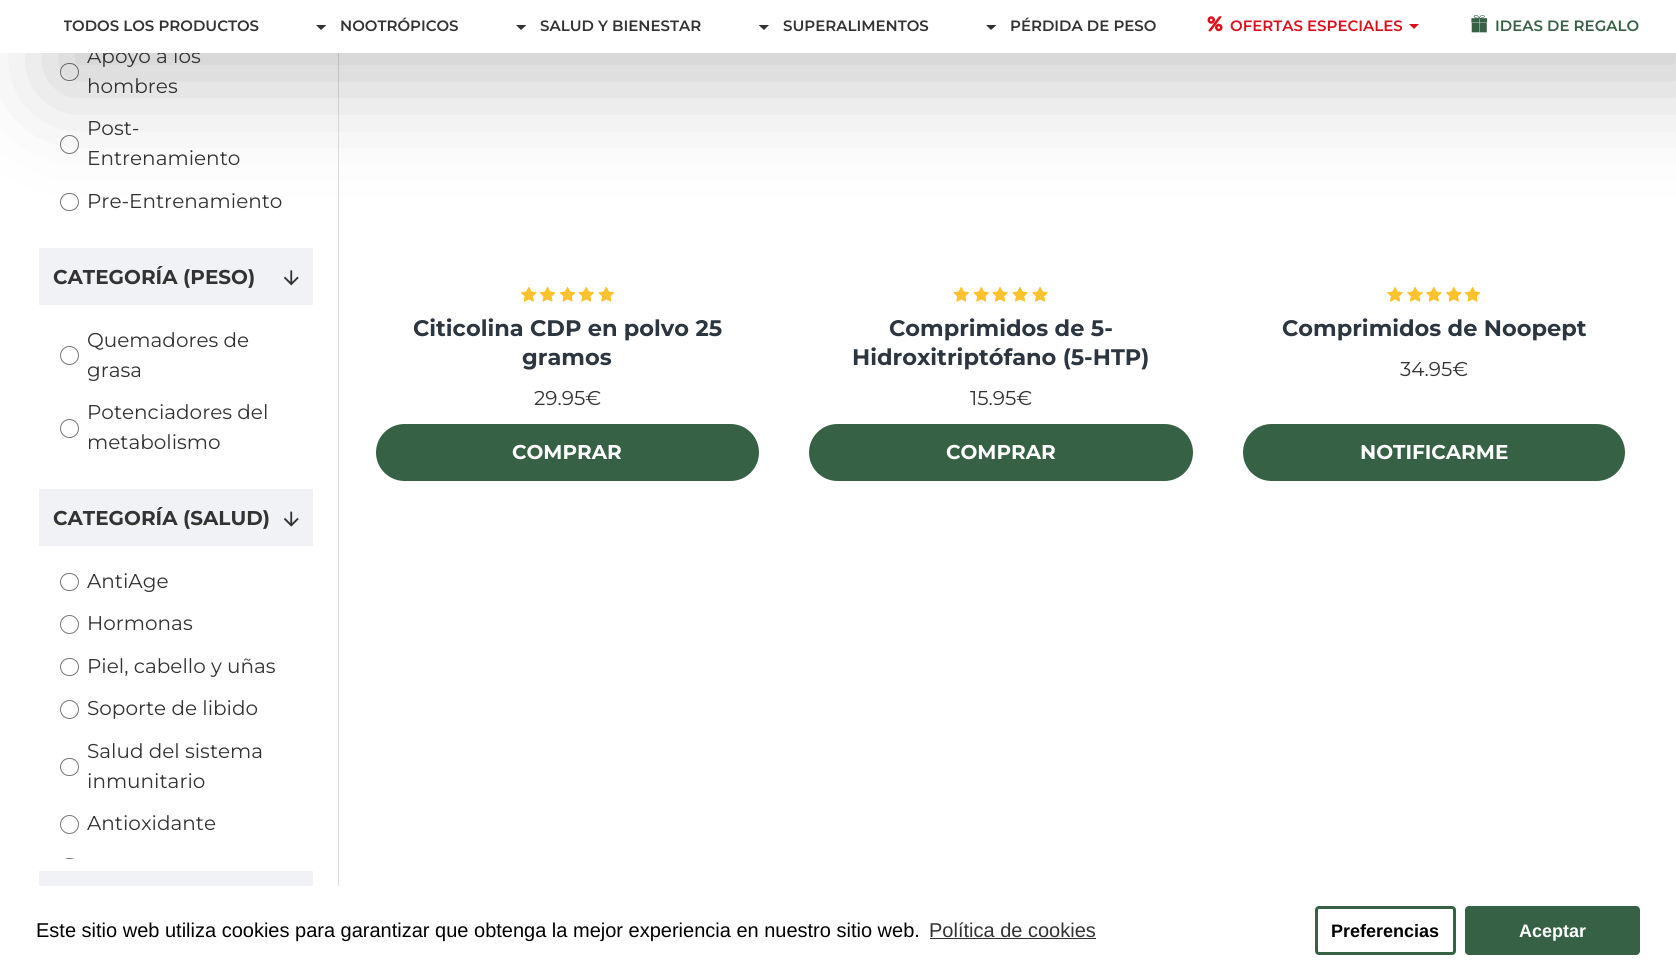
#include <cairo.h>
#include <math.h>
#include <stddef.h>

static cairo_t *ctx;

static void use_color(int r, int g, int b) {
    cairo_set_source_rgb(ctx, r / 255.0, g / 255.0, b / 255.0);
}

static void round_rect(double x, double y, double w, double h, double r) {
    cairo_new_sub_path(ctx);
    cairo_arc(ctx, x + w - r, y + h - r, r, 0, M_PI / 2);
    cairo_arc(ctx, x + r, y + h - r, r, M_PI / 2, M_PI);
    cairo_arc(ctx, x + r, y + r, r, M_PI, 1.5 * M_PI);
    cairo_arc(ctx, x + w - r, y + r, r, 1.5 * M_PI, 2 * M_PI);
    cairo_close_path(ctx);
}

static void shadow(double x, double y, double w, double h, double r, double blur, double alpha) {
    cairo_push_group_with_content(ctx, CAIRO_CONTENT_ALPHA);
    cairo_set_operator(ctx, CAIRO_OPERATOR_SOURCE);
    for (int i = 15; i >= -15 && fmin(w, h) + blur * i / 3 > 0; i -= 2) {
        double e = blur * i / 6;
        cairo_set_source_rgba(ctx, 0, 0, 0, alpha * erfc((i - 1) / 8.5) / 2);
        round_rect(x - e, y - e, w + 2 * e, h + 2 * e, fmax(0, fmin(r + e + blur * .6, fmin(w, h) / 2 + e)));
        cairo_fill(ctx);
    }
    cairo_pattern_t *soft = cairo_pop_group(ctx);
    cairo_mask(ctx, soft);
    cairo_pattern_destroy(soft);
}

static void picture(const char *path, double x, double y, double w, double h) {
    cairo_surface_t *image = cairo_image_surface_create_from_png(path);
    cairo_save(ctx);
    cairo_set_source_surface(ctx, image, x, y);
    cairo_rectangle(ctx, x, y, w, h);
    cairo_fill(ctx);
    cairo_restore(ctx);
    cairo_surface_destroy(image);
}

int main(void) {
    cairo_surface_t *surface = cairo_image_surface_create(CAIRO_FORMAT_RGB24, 1676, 975);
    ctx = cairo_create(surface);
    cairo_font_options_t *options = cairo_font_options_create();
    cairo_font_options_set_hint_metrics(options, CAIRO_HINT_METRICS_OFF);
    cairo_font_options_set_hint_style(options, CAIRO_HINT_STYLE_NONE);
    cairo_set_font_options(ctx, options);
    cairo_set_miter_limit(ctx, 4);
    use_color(255, 255, 255);
    cairo_paint(ctx);
    use_color(221, 221, 221);
    cairo_rectangle(ctx, 338, 53, 1, 833);
    cairo_fill(ctx);
    round_rect(60.5, 63.5, 18, 17, 8.5);
    use_color(118, 118, 118);
    cairo_set_line_width(ctx, 1);
    cairo_stroke(ctx);
    cairo_arc(ctx, 69.5, 144.5, 9, 0, 2 * M_PI);
    cairo_stroke(ctx);
    round_rect(60.5, 193.5, 18, 17, 8.5);
    cairo_stroke(ctx);
    use_color(0, 0, 0);
    shadow(50, -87, 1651, 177, 0, 50, 0.2);
    cairo_select_font_face(ctx, "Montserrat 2 Thin", CAIRO_FONT_SLANT_NORMAL, CAIRO_FONT_WEIGHT_NORMAL);
    cairo_set_font_size(ctx, 20);
    use_color(51, 51, 51);
    cairo_move_to(ctx, 87, 63);
    cairo_show_text(ctx, "Apoyo a los");
    use_color(255, 255, 255);
    cairo_rectangle(ctx, 0, 0, 1676, 53);
    cairo_fill(ctx);
    cairo_save(ctx);
    cairo_rectangle(ctx, 64, 15, 195, 24);
    cairo_clip(ctx);
    cairo_select_font_face(ctx, "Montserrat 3 Thin", CAIRO_FONT_SLANT_NORMAL, CAIRO_FONT_WEIGHT_NORMAL);
    cairo_set_font_size(ctx, 15);
    use_color(51, 51, 51);
    cairo_move_to(ctx, 63, 31);
    cairo_show_text(ctx, "TODOS LOS PRODUCTOS");
    cairo_restore(ctx);
    use_color(51, 51, 51);
    cairo_new_path(ctx);
    cairo_move_to(ctx, 316, 25);
    cairo_line_to(ctx, 326.5, 25);
    cairo_line_to(ctx, 321, 30);
    cairo_close_path(ctx);
    cairo_fill(ctx);
    cairo_select_font_face(ctx, "Montserrat 3 Thin", CAIRO_FONT_SLANT_NORMAL, CAIRO_FONT_WEIGHT_NORMAL);
    cairo_set_font_size(ctx, 15);
    cairo_move_to(ctx, 340, 31);
    cairo_show_text(ctx, "NOOTRÓPICOS");
    cairo_new_path(ctx);
    cairo_move_to(ctx, 516, 25);
    cairo_line_to(ctx, 526.5, 25);
    cairo_line_to(ctx, 521, 30);
    cairo_close_path(ctx);
    cairo_fill(ctx);
    cairo_move_to(ctx, 540, 31);
    cairo_show_text(ctx, "SALUD Y BIENESTAR");
    cairo_new_path(ctx);
    cairo_move_to(ctx, 758.5, 25);
    cairo_line_to(ctx, 769, 25);
    cairo_line_to(ctx, 764, 30);
    cairo_close_path(ctx);
    cairo_fill(ctx);
    cairo_move_to(ctx, 783, 31);
    cairo_show_text(ctx, "SUPERALIMENTOS");
    cairo_new_path(ctx);
    cairo_move_to(ctx, 986, 25);
    cairo_line_to(ctx, 996.5, 25);
    cairo_line_to(ctx, 991, 30);
    cairo_close_path(ctx);
    cairo_fill(ctx);
    cairo_move_to(ctx, 1010, 31);
    cairo_show_text(ctx, "PÉRDIDA DE PESO");
    picture("img1.png", 1207, 16, 16, 16);
    use_color(221, 14, 28);
    cairo_move_to(ctx, 1230, 31);
    cairo_show_text(ctx, "OFERTAS ESPECIALES");
    cairo_new_path(ctx);
    cairo_move_to(ctx, 1409, 24);
    cairo_line_to(ctx, 1419, 24);
    cairo_line_to(ctx, 1414, 29);
    cairo_close_path(ctx);
    cairo_fill(ctx);
    picture("img2.png", 1471, 15, 17, 18);
    use_color(55, 97, 69);
    cairo_move_to(ctx, 1495, 31);
    cairo_show_text(ctx, "IDEAS DE REGALO");
    cairo_select_font_face(ctx, "Montserrat 2 Thin", CAIRO_FONT_SLANT_NORMAL, CAIRO_FONT_WEIGHT_NORMAL);
    cairo_set_font_size(ctx, 20);
    use_color(51, 51, 51);
    cairo_move_to(ctx, 87, 93);
    cairo_show_text(ctx, "hombres");
    cairo_move_to(ctx, 87, 135);
    cairo_show_text(ctx, "Post-");
    cairo_move_to(ctx, 87, 165);
    cairo_show_text(ctx, "Entrenamiento");
    cairo_move_to(ctx, 87, 208);
    cairo_show_text(ctx, "Pre-Entrenamiento");
    use_color(240, 242, 245);
    cairo_rectangle(ctx, 39, 248, 274, 57);
    cairo_fill(ctx);
    cairo_select_font_face(ctx, "Montserrat Thin", CAIRO_FONT_SLANT_NORMAL, CAIRO_FONT_WEIGHT_NORMAL);
    use_color(51, 51, 51);
    cairo_move_to(ctx, 53, 284);
    cairo_show_text(ctx, "CATEGORÍA (PESO)");
    picture("img3.png", 283, 270, 16, 16);
    cairo_arc(ctx, 69.5, 355.5, 9, 0, 2 * M_PI);
    use_color(118, 118, 118);
    cairo_stroke(ctx);
    cairo_select_font_face(ctx, "Montserrat 2 Thin", CAIRO_FONT_SLANT_NORMAL, CAIRO_FONT_WEIGHT_NORMAL);
    use_color(51, 51, 51);
    cairo_move_to(ctx, 87, 347);
    cairo_show_text(ctx, "Quemadores de");
    cairo_save(ctx);
    cairo_rectangle(ctx, 88, 325, 200, 60);
    cairo_clip(ctx);
    cairo_move_to(ctx, 87, 377);
    cairo_show_text(ctx, "grasa");
    cairo_restore(ctx);
    cairo_new_path(ctx);
    cairo_arc(ctx, 69.5, 428.5, 9, 0, 2 * M_PI);
    use_color(118, 118, 118);
    cairo_stroke(ctx);
    use_color(51, 51, 51);
    cairo_move_to(ctx, 87, 419);
    cairo_show_text(ctx, "Potenciadores del");
    cairo_move_to(ctx, 87, 449);
    cairo_show_text(ctx, "metabolismo");
    use_color(240, 242, 245);
    cairo_rectangle(ctx, 39, 489, 274, 57);
    cairo_fill(ctx);
    cairo_select_font_face(ctx, "Montserrat Thin", CAIRO_FONT_SLANT_NORMAL, CAIRO_FONT_WEIGHT_NORMAL);
    use_color(51, 51, 51);
    cairo_move_to(ctx, 53, 525);
    cairo_show_text(ctx, "CATEGORÍA (SALUD)");
    picture("img4.png", 283, 511, 16, 16);
    round_rect(60.5, 573.5, 18, 17, 8.5);
    use_color(118, 118, 118);
    cairo_stroke(ctx);
    cairo_select_font_face(ctx, "Montserrat 2 Thin", CAIRO_FONT_SLANT_NORMAL, CAIRO_FONT_WEIGHT_NORMAL);
    use_color(51, 51, 51);
    cairo_move_to(ctx, 87, 588);
    cairo_show_text(ctx, "AntiAge");
    cairo_new_path(ctx);
    cairo_arc(ctx, 69.5, 624.5, 9, 0, 2 * M_PI);
    use_color(118, 118, 118);
    cairo_stroke(ctx);
    use_color(51, 51, 51);
    cairo_move_to(ctx, 87, 630);
    cairo_show_text(ctx, "Hormonas");
    round_rect(60.5, 658.5, 18, 17, 8.5);
    use_color(118, 118, 118);
    cairo_stroke(ctx);
    use_color(51, 51, 51);
    cairo_move_to(ctx, 87, 673);
    cairo_show_text(ctx, "Piel, cabello y uñas");
    cairo_new_path(ctx);
    cairo_arc(ctx, 69.5, 709.5, 9, 0, 2 * M_PI);
    use_color(118, 118, 118);
    cairo_stroke(ctx);
    use_color(51, 51, 51);
    cairo_move_to(ctx, 87, 715);
    cairo_show_text(ctx, "Soporte de libido");
    round_rect(60.5, 758.5, 18, 17, 8.5);
    use_color(118, 118, 118);
    cairo_stroke(ctx);
    use_color(51, 51, 51);
    cairo_move_to(ctx, 87, 758);
    cairo_show_text(ctx, "Salud del sistema");
    cairo_move_to(ctx, 87, 788);
    cairo_show_text(ctx, "inmunitario");
    cairo_new_path(ctx);
    cairo_arc(ctx, 69.5, 824.5, 9, 0, 2 * M_PI);
    use_color(118, 118, 118);
    cairo_stroke(ctx);
    use_color(51, 51, 51);
    cairo_move_to(ctx, 87, 830);
    cairo_show_text(ctx, "Antioxidante");
    cairo_save(ctx);
    cairo_rectangle(ctx, 39, 548, 274, 311);
    cairo_clip(ctx);
    round_rect(60.5, 858.5, 18, 17, 8.5);
    use_color(118, 118, 118);
    cairo_stroke(ctx);
    cairo_restore(ctx);
    use_color(240, 242, 245);
    cairo_rectangle(ctx, 39, 871, 274, 15);
    cairo_fill(ctx);
    picture("img5.png", 521, 287, 16, 15);
    picture("img6.png", 521, 287, 16, 15);
    picture("img7.png", 540, 287, 15, 15);
    picture("img8.png", 540, 287, 15, 15);
    picture("img7.png", 560, 287, 15, 15);
    picture("img8.png", 560, 287, 15, 15);
    picture("img9.png", 578, 287, 16, 15);
    picture("img10.png", 578, 287, 16, 15);
    picture("img9.png", 598, 287, 16, 15);
    picture("img10.png", 598, 287, 16, 15);
    cairo_select_font_face(ctx, "Montserrat Thin", CAIRO_FONT_SLANT_NORMAL, CAIRO_FONT_WEIGHT_NORMAL);
    cairo_set_font_size(ctx, 22.5);
    use_color(44, 54, 64);
    cairo_move_to(ctx, 413, 336);
    cairo_show_text(ctx, "Citicolina CDP en polvo 25");
    cairo_move_to(ctx, 522, 365);
    cairo_show_text(ctx, "gramos");
    cairo_select_font_face(ctx, "Montserrat 2 Thin", CAIRO_FONT_SLANT_NORMAL, CAIRO_FONT_WEIGHT_NORMAL);
    cairo_set_font_size(ctx, 20);
    use_color(51, 51, 51);
    cairo_move_to(ctx, 534, 405);
    cairo_show_text(ctx, "29.95€");
    use_color(54, 97, 68);
    round_rect(376, 424, 383, 57, 28.5);
    cairo_fill(ctx);
    cairo_select_font_face(ctx, "Montserrat Thin", CAIRO_FONT_SLANT_NORMAL, CAIRO_FONT_WEIGHT_NORMAL);
    use_color(255, 255, 255);
    cairo_move_to(ctx, 512, 459);
    cairo_show_text(ctx, "COMPRAR");
    picture("img9.png", 953, 287, 16, 15);
    picture("img10.png", 953, 287, 16, 15);
    picture("img9.png", 973, 287, 16, 15);
    picture("img10.png", 973, 287, 16, 15);
    picture("img11.png", 992, 287, 16, 15);
    picture("img12.png", 992, 287, 16, 15);
    picture("img11.png", 1012, 287, 16, 15);
    picture("img12.png", 1012, 287, 16, 15);
    picture("img11.png", 1032, 287, 16, 15);
    picture("img12.png", 1032, 287, 16, 15);
    cairo_set_font_size(ctx, 22.5);
    use_color(44, 54, 64);
    cairo_move_to(ctx, 889, 336);
    cairo_show_text(ctx, "Comprimidos de 5-");
    cairo_move_to(ctx, 852, 365);
    cairo_show_text(ctx, "Hidroxitriptófano (5-HTP)");
    cairo_select_font_face(ctx, "Montserrat 2 Thin", CAIRO_FONT_SLANT_NORMAL, CAIRO_FONT_WEIGHT_NORMAL);
    cairo_set_font_size(ctx, 20);
    use_color(51, 51, 51);
    cairo_move_to(ctx, 970, 405);
    cairo_show_text(ctx, "15.95€");
    use_color(54, 97, 68);
    round_rect(809, 424, 384, 57, 28.5);
    cairo_fill(ctx);
    cairo_select_font_face(ctx, "Montserrat Thin", CAIRO_FONT_SLANT_NORMAL, CAIRO_FONT_WEIGHT_NORMAL);
    use_color(255, 255, 255);
    cairo_move_to(ctx, 946, 459);
    cairo_show_text(ctx, "COMPRAR");
    picture("img11.png", 1387, 287, 16, 15);
    picture("img12.png", 1387, 287, 16, 15);
    picture("img11.png", 1407, 287, 16, 15);
    picture("img12.png", 1407, 287, 16, 15);
    picture("img5.png", 1426, 287, 16, 15);
    picture("img6.png", 1426, 287, 16, 15);
    picture("img5.png", 1446, 287, 16, 15);
    picture("img6.png", 1446, 287, 16, 15);
    picture("img7.png", 1465, 287, 15, 15);
    picture("img8.png", 1465, 287, 15, 15);
    cairo_set_font_size(ctx, 22.5);
    use_color(44, 54, 64);
    cairo_move_to(ctx, 1282, 336);
    cairo_show_text(ctx, "Comprimidos de Noopept");
    cairo_select_font_face(ctx, "Montserrat 2 Thin", CAIRO_FONT_SLANT_NORMAL, CAIRO_FONT_WEIGHT_NORMAL);
    cairo_set_font_size(ctx, 20);
    use_color(51, 51, 51);
    cairo_move_to(ctx, 1400, 376);
    cairo_show_text(ctx, "34.95€");
    use_color(54, 97, 68);
    round_rect(1243, 424, 382, 57, 28.5);
    cairo_fill(ctx);
    cairo_select_font_face(ctx, "Montserrat Thin", CAIRO_FONT_SLANT_NORMAL, CAIRO_FONT_WEIGHT_NORMAL);
    use_color(255, 255, 255);
    cairo_move_to(ctx, 1360, 459);
    cairo_show_text(ctx, "NOTIFICARME");
    cairo_select_font_face(ctx, "Liberation Sans", CAIRO_FONT_SLANT_NORMAL, CAIRO_FONT_WEIGHT_NORMAL);
    use_color(0, 0, 0);
    cairo_move_to(ctx, 36, 937);
    cairo_show_text(ctx, "Este sitio web utiliza cookies para garantizar que obtenga la mejor experiencia en nuestro sitio web.");
    use_color(51, 51, 51);
    cairo_move_to(ctx, 929, 937);
    cairo_show_text(ctx, "Política de cookies");
    cairo_rectangle(ctx, 930, 938, 166, 1);
    cairo_fill(ctx);
    round_rect(1316.5, 907.5, 138, 46, 2.5);
    use_color(54, 97, 68);
    cairo_set_line_width(ctx, 3);
    cairo_stroke(ctx);
    cairo_select_font_face(ctx, "Liberation Sans", CAIRO_FONT_SLANT_NORMAL, CAIRO_FONT_WEIGHT_BOLD);
    cairo_set_font_size(ctx, 18);
    use_color(0, 0, 0);
    cairo_move_to(ctx, 1331, 937);
    cairo_show_text(ctx, "Preferencias");
    use_color(54, 97, 68);
    round_rect(1465, 906, 175, 49, 4);
    cairo_fill(ctx);
    use_color(255, 255, 255);
    cairo_move_to(ctx, 1519, 937);
    cairo_show_text(ctx, "Aceptar");
    cairo_surface_write_to_png(surface, "result.png");
    cairo_font_options_destroy(options);
    cairo_destroy(ctx);
    cairo_surface_destroy(surface);
    return 0;
}
